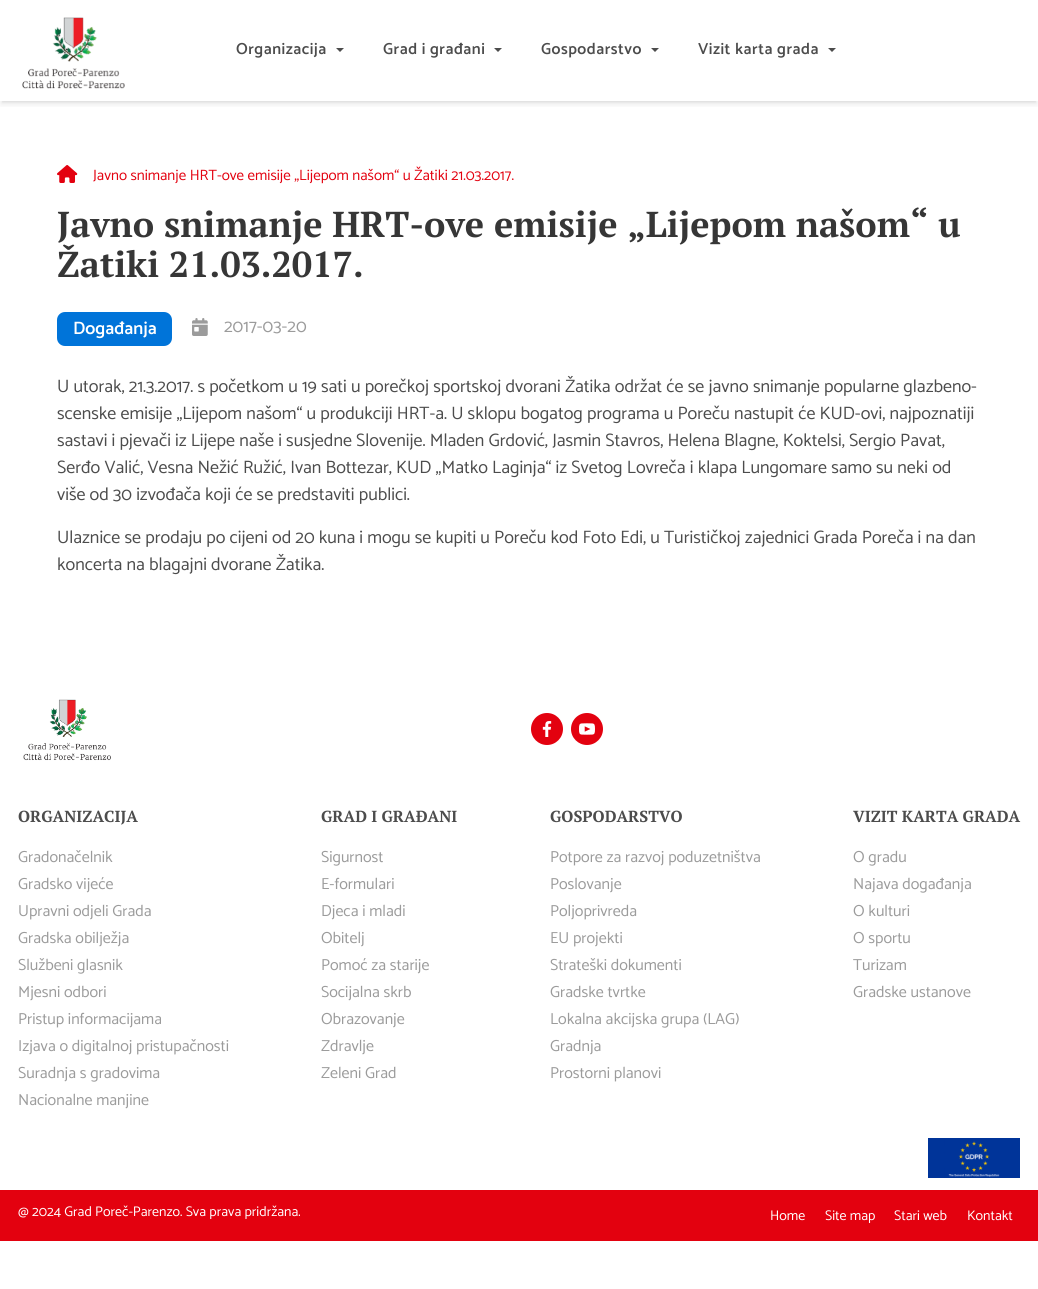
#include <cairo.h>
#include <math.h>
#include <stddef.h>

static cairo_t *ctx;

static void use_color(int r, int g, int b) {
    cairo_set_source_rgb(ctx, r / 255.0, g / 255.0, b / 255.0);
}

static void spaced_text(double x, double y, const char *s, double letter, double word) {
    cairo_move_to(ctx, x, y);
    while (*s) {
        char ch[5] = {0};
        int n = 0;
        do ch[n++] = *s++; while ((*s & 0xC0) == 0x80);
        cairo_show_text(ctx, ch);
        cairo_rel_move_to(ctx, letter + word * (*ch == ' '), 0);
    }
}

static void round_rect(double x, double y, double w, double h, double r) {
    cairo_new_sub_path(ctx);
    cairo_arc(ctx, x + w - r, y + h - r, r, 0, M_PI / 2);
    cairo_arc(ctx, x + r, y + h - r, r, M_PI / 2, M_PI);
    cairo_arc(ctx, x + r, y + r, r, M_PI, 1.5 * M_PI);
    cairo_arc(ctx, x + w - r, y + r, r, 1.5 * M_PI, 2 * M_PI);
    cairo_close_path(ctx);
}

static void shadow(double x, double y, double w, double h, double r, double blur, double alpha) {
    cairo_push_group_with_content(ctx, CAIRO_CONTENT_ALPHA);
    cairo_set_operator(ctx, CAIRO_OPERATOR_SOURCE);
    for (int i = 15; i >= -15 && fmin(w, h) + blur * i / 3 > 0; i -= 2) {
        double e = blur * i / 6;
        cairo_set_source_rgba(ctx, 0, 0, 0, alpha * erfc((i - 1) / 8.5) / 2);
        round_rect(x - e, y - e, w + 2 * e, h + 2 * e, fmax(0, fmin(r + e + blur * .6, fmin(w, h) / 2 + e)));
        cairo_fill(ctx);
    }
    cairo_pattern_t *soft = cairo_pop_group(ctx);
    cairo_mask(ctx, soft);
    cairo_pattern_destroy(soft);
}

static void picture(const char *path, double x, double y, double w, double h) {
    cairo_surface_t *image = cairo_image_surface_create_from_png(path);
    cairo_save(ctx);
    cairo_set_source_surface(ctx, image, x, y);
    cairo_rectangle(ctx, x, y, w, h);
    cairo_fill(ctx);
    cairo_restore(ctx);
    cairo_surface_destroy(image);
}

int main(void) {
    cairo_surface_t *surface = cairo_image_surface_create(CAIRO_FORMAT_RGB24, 1038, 1289);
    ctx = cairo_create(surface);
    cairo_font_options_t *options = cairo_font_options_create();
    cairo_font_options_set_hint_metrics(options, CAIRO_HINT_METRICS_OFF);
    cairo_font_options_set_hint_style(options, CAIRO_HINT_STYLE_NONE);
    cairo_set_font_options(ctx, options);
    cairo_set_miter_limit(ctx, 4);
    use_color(255, 255, 255);
    cairo_paint(ctx);
    cairo_save(ctx);
    cairo_rectangle(ctx, 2, 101, 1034, 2);
    cairo_clip(ctx);
    use_color(0, 0, 0);
    shadow(2, 4, 1034, 97, 0, 2, 0.1);
    cairo_restore(ctx);
    cairo_save(ctx);
    cairo_rectangle(ctx, 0, 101, 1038, 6);
    cairo_clip(ctx);
    use_color(0, 0, 0);
    shadow(1, 5, 1036, 99, 0, 3, 0.1);
    cairo_restore(ctx);
    picture("img1.png", 22, 17, 103, 72);
    cairo_select_font_face(ctx, "Catamaran SemiBold", CAIRO_FONT_SLANT_NORMAL, CAIRO_FONT_WEIGHT_NORMAL);
    cairo_set_font_size(ctx, 16);
    use_color(76, 76, 76);
    spaced_text(236, 54, "Organizacija", 0.5, 0);
    cairo_new_path(ctx);
    cairo_move_to(ctx, 336, 48);
    cairo_line_to(ctx, 344, 48);
    cairo_line_to(ctx, 340, 52);
    cairo_close_path(ctx);
    cairo_fill(ctx);
    spaced_text(383, 54, "Grad i građani", 0.5, 0);
    cairo_new_path(ctx);
    cairo_move_to(ctx, 494, 48);
    cairo_line_to(ctx, 502, 48);
    cairo_line_to(ctx, 498, 52);
    cairo_close_path(ctx);
    cairo_fill(ctx);
    spaced_text(541, 54, "Gospodarstvo", 0.5, 0);
    cairo_new_path(ctx);
    cairo_move_to(ctx, 651, 48);
    cairo_line_to(ctx, 659, 48);
    cairo_line_to(ctx, 655, 52);
    cairo_close_path(ctx);
    cairo_fill(ctx);
    spaced_text(698, 54, "Vizit karta grada", 0.5, 0);
    cairo_new_path(ctx);
    cairo_move_to(ctx, 828, 48);
    cairo_line_to(ctx, 836, 48);
    cairo_line_to(ctx, 832, 52);
    cairo_close_path(ctx);
    cairo_fill(ctx);
    picture("img2.png", 57, 165, 21, 18);
    cairo_select_font_face(ctx, "Catamaran", CAIRO_FONT_SLANT_NORMAL, CAIRO_FONT_WEIGHT_NORMAL);
    cairo_set_font_size(ctx, 15);
    use_color(227, 1, 15);
    cairo_move_to(ctx, 93, 180);
    cairo_show_text(ctx, "Javno snimanje HRT-ove emisije „Lijepom našom“ u Žatiki 21.03.2017.");
    cairo_select_font_face(ctx, "PT Serif", CAIRO_FONT_SLANT_NORMAL, CAIRO_FONT_WEIGHT_BOLD);
    cairo_set_font_size(ctx, 36);
    use_color(54, 54, 54);
    cairo_move_to(ctx, 57, 237);
    cairo_show_text(ctx, "Javno snimanje HRT-ove emisije „Lijepom našom“ u");
    cairo_move_to(ctx, 57, 277);
    cairo_show_text(ctx, "Žatiki 21.03.2017.");
    use_color(0, 116, 217);
    round_rect(57, 312, 115, 34, 8);
    cairo_fill(ctx);
    cairo_select_font_face(ctx, "Catamaran SemiBold", CAIRO_FONT_SLANT_NORMAL, CAIRO_FONT_WEIGHT_NORMAL);
    cairo_set_font_size(ctx, 18);
    use_color(255, 255, 255);
    cairo_move_to(ctx, 73, 334);
    cairo_show_text(ctx, "Događanja");
    picture("img3.png", 192, 318, 16, 18);
    cairo_select_font_face(ctx, "Catamaran", CAIRO_FONT_SLANT_NORMAL, CAIRO_FONT_WEIGHT_NORMAL);
    use_color(155, 155, 155);
    cairo_move_to(ctx, 224, 332);
    cairo_show_text(ctx, "2017-03-20");
    use_color(76, 76, 76);
    cairo_move_to(ctx, 57, 392);
    cairo_show_text(ctx, "U utorak, 21.3.2017. s početkom u 19 sati u porečkoj sportskoj dvorani Žatika održat će se javno snimanje popularne glazbeno-");
    cairo_move_to(ctx, 57, 419);
    cairo_show_text(ctx, "scenske emisije „Lijepom našom“ u produkciji HRT-a. U sklopu bogatog programa u Poreču nastupit će KUD-ovi, najpoznatiji");
    cairo_move_to(ctx, 57, 446);
    cairo_show_text(ctx, "sastavi i pjevači iz Lijepe naše i susjedne Slovenije. Mladen Grdović, Jasmin Stavros, Helena Blagne, Koktelsi, Sergio Pavat,");
    cairo_move_to(ctx, 57, 473);
    cairo_show_text(ctx, "Serđo Valić, Vesna Nežić Ružić, Ivan Bottezar, KUD „Matko Laginja“ iz Svetog Lovreča i klapa Lungomare samo su neki od");
    cairo_move_to(ctx, 57, 500);
    cairo_show_text(ctx, "više od 30 izvođača koji će se predstaviti publici.");
    cairo_move_to(ctx, 57, 543);
    cairo_show_text(ctx, "Ulaznice se prodaju po cijeni od 20 kuna i mogu se kupiti u Poreču kod Foto Edi, u Turističkoj zajednici Grada Poreča i na dan");
    cairo_move_to(ctx, 57, 570);
    cairo_show_text(ctx, "koncerta na blagajni dvorane Žatika.");
    picture("img4.png", 23, 699, 88, 62);
    picture("img5.png", 531, 713, 32, 32);
    picture("img6.png", 571, 713, 32, 32);
    cairo_select_font_face(ctx, "PT Serif", CAIRO_FONT_SLANT_NORMAL, CAIRO_FONT_WEIGHT_BOLD);
    cairo_set_font_size(ctx, 16);
    cairo_move_to(ctx, 18, 822);
    cairo_show_text(ctx, "ORGANIZACIJA");
    cairo_select_font_face(ctx, "Catamaran", CAIRO_FONT_SLANT_NORMAL, CAIRO_FONT_WEIGHT_NORMAL);
    use_color(155, 155, 155);
    cairo_move_to(ctx, 18, 862);
    cairo_show_text(ctx, "Gradonačelnik");
    cairo_move_to(ctx, 18, 889);
    cairo_show_text(ctx, "Gradsko vijeće");
    cairo_move_to(ctx, 18, 916);
    cairo_show_text(ctx, "Upravni odjeli Grada");
    cairo_move_to(ctx, 18, 943);
    cairo_show_text(ctx, "Gradska obilježja");
    cairo_move_to(ctx, 18, 970);
    cairo_show_text(ctx, "Službeni glasnik");
    cairo_move_to(ctx, 18, 997);
    cairo_show_text(ctx, "Mjesni odbori");
    cairo_move_to(ctx, 18, 1024);
    cairo_show_text(ctx, "Pristup informacijama");
    cairo_move_to(ctx, 18, 1051);
    cairo_show_text(ctx, "Izjava o digitalnoj pristupačnosti");
    cairo_move_to(ctx, 18, 1078);
    cairo_show_text(ctx, "Suradnja s gradovima");
    cairo_move_to(ctx, 18, 1105);
    cairo_show_text(ctx, "Nacionalne manjine");
    cairo_select_font_face(ctx, "PT Serif", CAIRO_FONT_SLANT_NORMAL, CAIRO_FONT_WEIGHT_BOLD);
    use_color(76, 76, 76);
    cairo_move_to(ctx, 321, 822);
    cairo_show_text(ctx, "GRAD I GRAĐANI");
    cairo_select_font_face(ctx, "Catamaran", CAIRO_FONT_SLANT_NORMAL, CAIRO_FONT_WEIGHT_NORMAL);
    use_color(155, 155, 155);
    cairo_move_to(ctx, 321, 862);
    cairo_show_text(ctx, "Sigurnost");
    cairo_move_to(ctx, 321, 889);
    cairo_show_text(ctx, "E-formulari");
    cairo_move_to(ctx, 321, 916);
    cairo_show_text(ctx, "Djeca i mladi");
    cairo_move_to(ctx, 321, 943);
    cairo_show_text(ctx, "Obitelj");
    cairo_move_to(ctx, 321, 970);
    cairo_show_text(ctx, "Pomoć za starije");
    cairo_move_to(ctx, 321, 997);
    cairo_show_text(ctx, "Socijalna skrb");
    cairo_move_to(ctx, 321, 1024);
    cairo_show_text(ctx, "Obrazovanje");
    cairo_move_to(ctx, 321, 1051);
    cairo_show_text(ctx, "Zdravlje");
    cairo_move_to(ctx, 321, 1078);
    cairo_show_text(ctx, "Zeleni Grad");
    cairo_select_font_face(ctx, "PT Serif", CAIRO_FONT_SLANT_NORMAL, CAIRO_FONT_WEIGHT_BOLD);
    use_color(76, 76, 76);
    cairo_move_to(ctx, 550, 822);
    cairo_show_text(ctx, "GOSPODARSTVO");
    cairo_select_font_face(ctx, "Catamaran", CAIRO_FONT_SLANT_NORMAL, CAIRO_FONT_WEIGHT_NORMAL);
    use_color(155, 155, 155);
    cairo_move_to(ctx, 550, 862);
    cairo_show_text(ctx, "Potpore za razvoj poduzetništva");
    cairo_move_to(ctx, 550, 889);
    cairo_show_text(ctx, "Poslovanje");
    cairo_move_to(ctx, 550, 916);
    cairo_show_text(ctx, "Poljoprivreda");
    cairo_move_to(ctx, 550, 943);
    cairo_show_text(ctx, "EU projekti");
    cairo_move_to(ctx, 550, 970);
    cairo_show_text(ctx, "Strateški dokumenti");
    cairo_move_to(ctx, 550, 997);
    cairo_show_text(ctx, "Gradske tvrtke");
    cairo_move_to(ctx, 550, 1024);
    cairo_show_text(ctx, "Lokalna akcijska grupa (LAG)");
    cairo_move_to(ctx, 550, 1051);
    cairo_show_text(ctx, "Gradnja");
    cairo_move_to(ctx, 550, 1078);
    cairo_show_text(ctx, "Prostorni planovi");
    cairo_select_font_face(ctx, "PT Serif", CAIRO_FONT_SLANT_NORMAL, CAIRO_FONT_WEIGHT_BOLD);
    use_color(76, 76, 76);
    cairo_move_to(ctx, 853, 822);
    cairo_show_text(ctx, "VIZIT KARTA GRADA");
    cairo_select_font_face(ctx, "Catamaran", CAIRO_FONT_SLANT_NORMAL, CAIRO_FONT_WEIGHT_NORMAL);
    use_color(155, 155, 155);
    cairo_move_to(ctx, 853, 862);
    cairo_show_text(ctx, "O gradu");
    cairo_move_to(ctx, 853, 889);
    cairo_show_text(ctx, "Najava događanja");
    cairo_move_to(ctx, 853, 916);
    cairo_show_text(ctx, "O kulturi");
    cairo_move_to(ctx, 853, 943);
    cairo_show_text(ctx, "O sportu");
    cairo_move_to(ctx, 853, 970);
    cairo_show_text(ctx, "Turizam");
    cairo_move_to(ctx, 853, 997);
    cairo_show_text(ctx, "Gradske ustanove");
    picture("img7.png", 928, 1138, 92, 40);
    use_color(227, 1, 15);
    cairo_rectangle(ctx, 0, 1190, 1038, 51);
    cairo_fill(ctx);
    cairo_set_font_size(ctx, 14);
    use_color(255, 255, 255);
    cairo_move_to(ctx, 18, 1216);
    cairo_show_text(ctx, "@ 2024 Grad Poreč-Parenzo. Sva prava pridržana.");
    cairo_move_to(ctx, 770, 1220);
    cairo_show_text(ctx, "Home");
    cairo_move_to(ctx, 825, 1220);
    cairo_show_text(ctx, "Site map");
    cairo_move_to(ctx, 894, 1220);
    cairo_show_text(ctx, "Stari web");
    cairo_move_to(ctx, 967, 1220);
    cairo_show_text(ctx, "Kontakt");
    cairo_surface_write_to_png(surface, "result.png");
    cairo_font_options_destroy(options);
    cairo_destroy(ctx);
    cairo_surface_destroy(surface);
    return 0;
}
